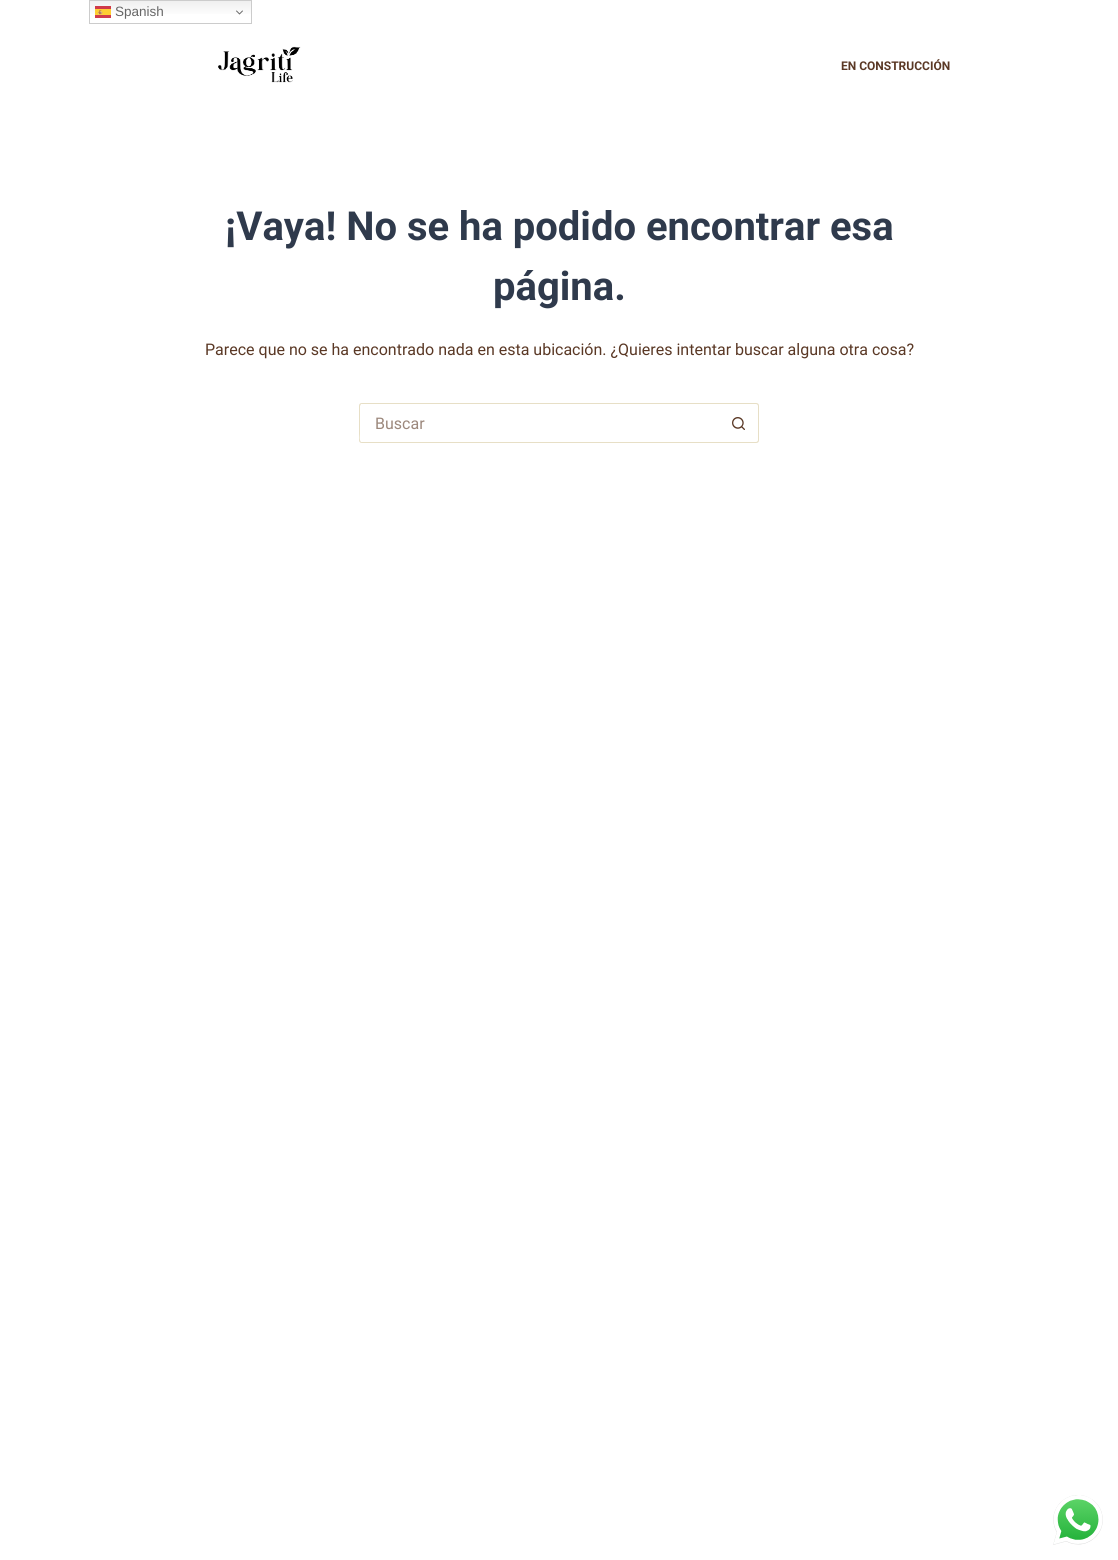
#include <cairo.h>
#include <math.h>
#include <stddef.h>

static cairo_t *ctx;

static void use_color(int r, int g, int b) {
    cairo_set_source_rgb(ctx, r / 255.0, g / 255.0, b / 255.0);
}

static void picture(const char *path, double x, double y, double w, double h) {
    cairo_surface_t *image = cairo_image_surface_create_from_png(path);
    cairo_save(ctx);
    cairo_set_source_surface(ctx, image, x, y);
    cairo_rectangle(ctx, x, y, w, h);
    cairo_fill(ctx);
    cairo_restore(ctx);
    cairo_surface_destroy(image);
}

int main(void) {
    cairo_surface_t *surface = cairo_image_surface_create(CAIRO_FORMAT_RGB24, 1118, 1560);
    ctx = cairo_create(surface);
    cairo_font_options_t *options = cairo_font_options_create();
    cairo_font_options_set_hint_metrics(options, CAIRO_HINT_METRICS_OFF);
    cairo_font_options_set_hint_style(options, CAIRO_HINT_STYLE_NONE);
    cairo_set_font_options(ctx, options);
    cairo_set_miter_limit(ctx, 4);
    cairo_pattern_t *gradient;
    use_color(255, 255, 255);
    cairo_paint(ctx);
    gradient = cairo_pattern_create_linear(171, 0, 171, 24);
    cairo_pattern_add_color_stop_rgba(gradient, 0, 0.937, 0.937, 0.937, 1);
    cairo_pattern_add_color_stop_rgba(gradient, 0.7, 1, 1, 1, 1);
    cairo_set_source(ctx, gradient);
    cairo_pattern_destroy(gradient);
    cairo_rectangle(ctx, 90, 1, 161, 13);
    cairo_fill(ctx);
    cairo_rectangle(ctx, 89.5, 0.5, 162, 23);
    use_color(204, 204, 204);
    cairo_set_line_width(ctx, 1);
    cairo_stroke(ctx);
    picture("img1.png", 95, 6, 16, 12);
    cairo_select_font_face(ctx, "Liberation Sans", CAIRO_FONT_SLANT_NORMAL, CAIRO_FONT_WEIGHT_NORMAL);
    cairo_set_font_size(ctx, 13.5);
    use_color(102, 102, 102);
    cairo_move_to(ctx, 115, 16);
    cairo_show_text(ctx, "Spanish");
    picture("img2.png", 236, 10, 7, 5);
    picture("img3.png", 218, 46, 83, 37);
    cairo_select_font_face(ctx, "Roboto", CAIRO_FONT_SLANT_NORMAL, CAIRO_FONT_WEIGHT_BOLD);
    cairo_set_font_size(ctx, 12);
    use_color(90, 56, 37);
    cairo_move_to(ctx, 841, 70);
    cairo_show_text(ctx, "EN CONSTRUCCIÓN");
    cairo_set_font_size(ctx, 40);
    use_color(47, 58, 76);
    cairo_move_to(ctx, 225, 240);
    cairo_show_text(ctx, "¡Vaya! No se ha podido encontrar esa");
    cairo_move_to(ctx, 493, 300);
    cairo_show_text(ctx, "página.");
    cairo_select_font_face(ctx, "Roboto", CAIRO_FONT_SLANT_NORMAL, CAIRO_FONT_WEIGHT_NORMAL);
    cairo_set_font_size(ctx, 16);
    use_color(90, 56, 37);
    cairo_move_to(ctx, 205, 355);
    cairo_show_text(ctx, "Parece que no se ha encontrado nada en esta ubicación. ¿Quieres intentar buscar alguna otra cosa?");
    use_color(231, 223, 198);
    cairo_set_fill_rule(ctx, CAIRO_FILL_RULE_EVEN_ODD);
    cairo_new_path(ctx);
    cairo_move_to(ctx, 362, 403);
    cairo_line_to(ctx, 719, 403);
    cairo_line_to(ctx, 719, 443);
    cairo_line_to(ctx, 362, 443);
    cairo_curve_to(ctx, 360, 443, 359, 442, 359, 440);
    cairo_line_to(ctx, 359, 406);
    cairo_curve_to(ctx, 359, 404, 360, 403, 362, 403);
    cairo_close_path(ctx);
    cairo_move_to(ctx, 362, 404);
    cairo_line_to(ctx, 719, 404);
    cairo_line_to(ctx, 719, 442);
    cairo_line_to(ctx, 361, 442);
    cairo_curve_to(ctx, 359, 440, 360, 435, 360, 434);
    cairo_line_to(ctx, 360, 406);
    cairo_line_to(ctx, 361, 404);
    cairo_close_path(ctx);
    cairo_fill(ctx);
    use_color(156, 136, 124);
    cairo_move_to(ctx, 375, 429);
    cairo_show_text(ctx, "Buscar");
    use_color(231, 223, 198);
    cairo_new_path(ctx);
    cairo_move_to(ctx, 719, 403);
    cairo_line_to(ctx, 756, 403);
    cairo_curve_to(ctx, 758, 403, 759, 404, 759, 406);
    cairo_line_to(ctx, 759, 440);
    cairo_curve_to(ctx, 759, 442, 758, 443, 756, 443);
    cairo_line_to(ctx, 719, 443);
    cairo_close_path(ctx);
    cairo_move_to(ctx, 719, 404);
    cairo_line_to(ctx, 756, 404);
    cairo_curve_to(ctx, 757, 404, 758, 405, 758, 406);
    cairo_line_to(ctx, 758, 440);
    cairo_curve_to(ctx, 758, 441, 757, 442, 756, 442);
    cairo_line_to(ctx, 719, 442);
    cairo_close_path(ctx);
    cairo_fill(ctx);
    picture("img4.png", 732, 417, 13, 13);
    picture("img5.png", 1053, 1495, 50, 50);
    cairo_surface_write_to_png(surface, "result.png");
    cairo_font_options_destroy(options);
    cairo_destroy(ctx);
    cairo_surface_destroy(surface);
    return 0;
}
